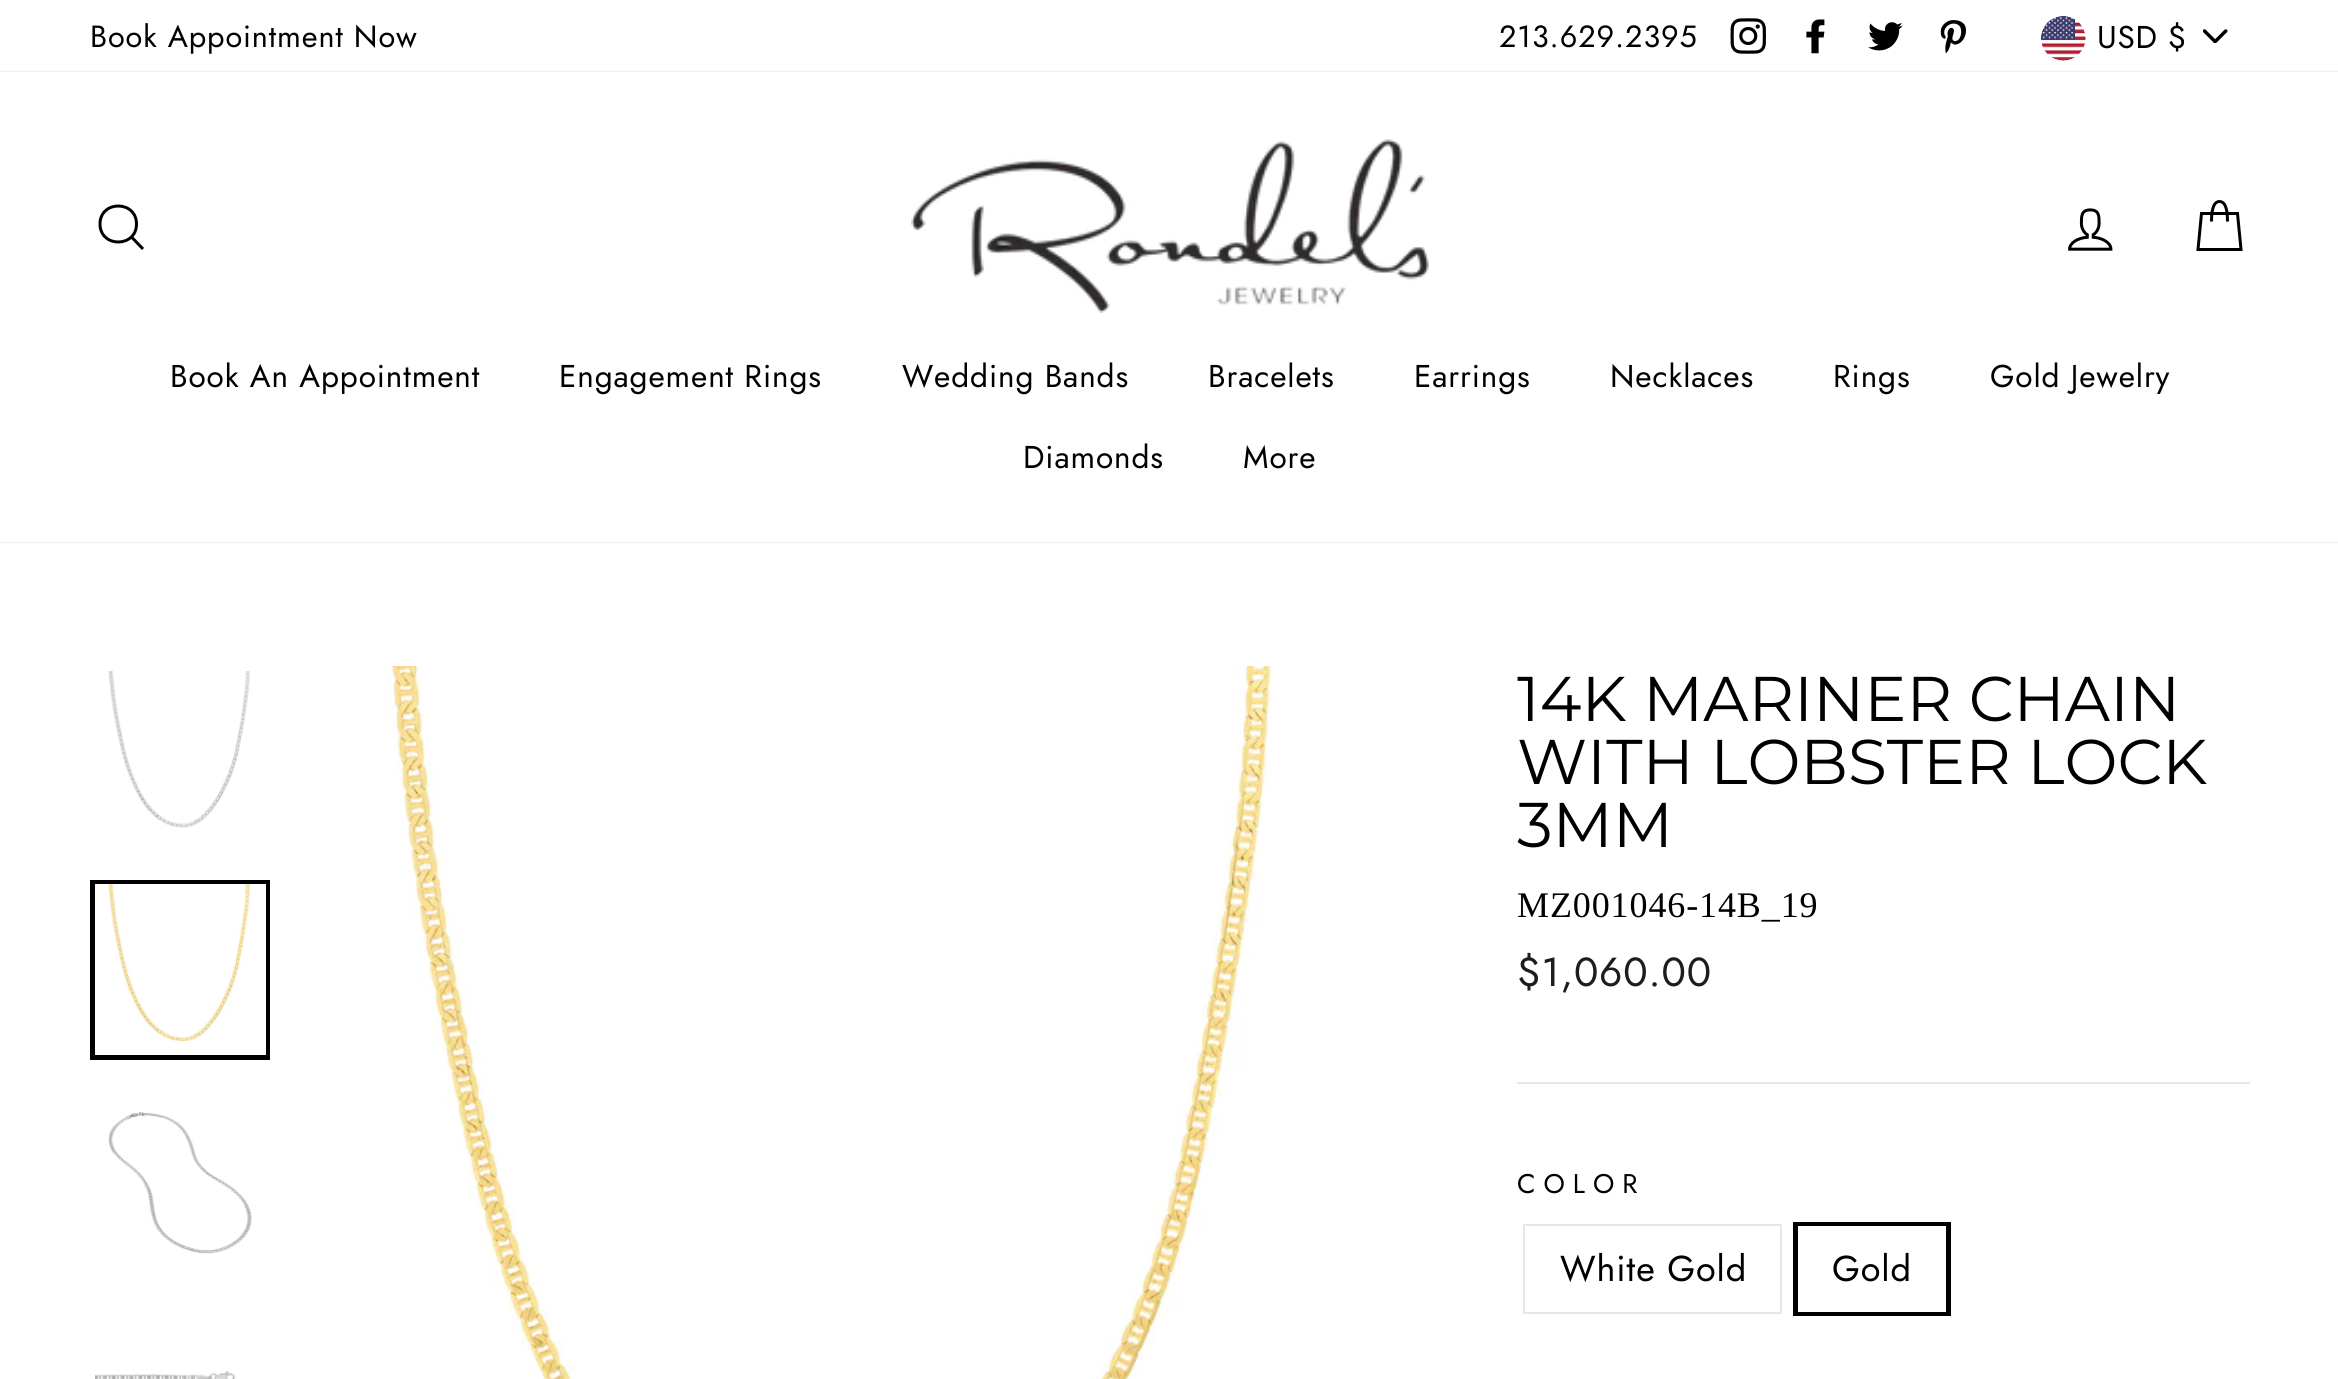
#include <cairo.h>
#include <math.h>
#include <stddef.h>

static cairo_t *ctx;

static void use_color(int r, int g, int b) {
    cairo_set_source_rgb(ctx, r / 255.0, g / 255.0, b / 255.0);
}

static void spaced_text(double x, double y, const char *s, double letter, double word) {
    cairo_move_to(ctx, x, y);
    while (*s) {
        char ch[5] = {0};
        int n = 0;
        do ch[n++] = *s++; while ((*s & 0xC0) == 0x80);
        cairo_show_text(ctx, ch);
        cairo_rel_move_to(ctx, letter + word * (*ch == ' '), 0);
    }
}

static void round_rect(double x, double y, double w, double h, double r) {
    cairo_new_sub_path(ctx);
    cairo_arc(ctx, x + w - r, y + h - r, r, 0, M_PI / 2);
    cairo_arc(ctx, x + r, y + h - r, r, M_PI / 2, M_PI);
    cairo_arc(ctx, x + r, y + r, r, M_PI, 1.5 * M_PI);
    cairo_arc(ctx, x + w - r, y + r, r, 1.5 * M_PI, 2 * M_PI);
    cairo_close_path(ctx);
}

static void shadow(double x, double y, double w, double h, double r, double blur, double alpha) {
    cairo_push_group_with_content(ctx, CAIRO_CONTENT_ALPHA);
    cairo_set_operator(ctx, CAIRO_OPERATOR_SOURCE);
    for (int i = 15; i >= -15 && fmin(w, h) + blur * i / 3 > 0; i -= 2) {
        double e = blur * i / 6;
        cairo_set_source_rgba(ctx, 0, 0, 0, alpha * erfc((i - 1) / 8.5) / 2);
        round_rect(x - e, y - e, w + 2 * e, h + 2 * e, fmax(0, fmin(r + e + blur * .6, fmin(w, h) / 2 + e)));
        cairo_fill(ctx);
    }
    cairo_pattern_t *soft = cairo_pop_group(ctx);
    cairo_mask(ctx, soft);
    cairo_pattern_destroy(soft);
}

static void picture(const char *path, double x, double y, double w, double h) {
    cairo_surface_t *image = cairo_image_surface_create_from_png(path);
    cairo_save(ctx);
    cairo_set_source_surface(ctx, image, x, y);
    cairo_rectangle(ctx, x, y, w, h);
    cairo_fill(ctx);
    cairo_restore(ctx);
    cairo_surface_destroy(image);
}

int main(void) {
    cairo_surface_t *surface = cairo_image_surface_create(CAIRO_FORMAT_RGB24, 2338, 1379);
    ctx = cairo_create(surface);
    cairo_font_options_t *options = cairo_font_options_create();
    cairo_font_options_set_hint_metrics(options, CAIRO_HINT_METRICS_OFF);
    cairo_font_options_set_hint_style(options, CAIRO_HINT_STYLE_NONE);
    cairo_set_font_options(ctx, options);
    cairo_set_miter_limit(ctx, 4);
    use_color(255, 255, 255);
    cairo_paint(ctx);
    cairo_select_font_face(ctx, "Jost", CAIRO_FONT_SLANT_NORMAL, CAIRO_FONT_WEIGHT_NORMAL);
    cairo_set_font_size(ctx, 30.6);
    use_color(0, 0, 0);
    spaced_text(90, 47, "Book Appointment Now", 0.9, 0);
    spaced_text(1499, 47, "213.629.2395", 0.9, 0);
    picture("img1.png", 1730, 18, 36, 36);
    picture("img2.png", 1806, 19, 19, 35);
    picture("img3.png", 1868, 22, 35, 29);
    picture("img4.png", 1940, 20, 26, 34);
    picture("img5.png", 2203, 29, 25, 14);
    picture("img6.png", 2040, 15, 46, 46);
    cairo_set_font_size(ctx, 31.5);
    spaced_text(2097, 48, "USD $", 0.75, 0);
    cairo_save(ctx);
    cairo_set_fill_rule(ctx, CAIRO_FILL_RULE_EVEN_ODD);
    cairo_new_path(ctx);
    cairo_move_to(ctx, 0, 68);
    cairo_line_to(ctx, 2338, 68);
    cairo_line_to(ctx, 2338, 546);
    cairo_line_to(ctx, 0, 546);
    cairo_close_path(ctx);
    cairo_move_to(ctx, 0, 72);
    cairo_line_to(ctx, 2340, 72);
    cairo_line_to(ctx, 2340, 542);
    cairo_line_to(ctx, 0, 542);
    cairo_close_path(ctx);
    cairo_clip(ctx);
    use_color(0, 0, 0);
    shadow(0, 72, 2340, 470, 0, 1, 0.2);
    cairo_restore(ctx);
    cairo_new_path(ctx);
    cairo_move_to(ctx, 136.5, 224);
    cairo_curve_to(ctx, 136.5, 248, 100, 248, 100, 224);
    cairo_curve_to(ctx, 100, 200, 136.5, 200, 136.5, 224);
    cairo_close_path(ctx);
    cairo_move_to(ctx, 143, 249);
    cairo_line_to(ctx, 131.5, 237);
    cairo_set_line_width(ctx, 3);
    cairo_stroke(ctx);
    picture("img7.png", 911, 139, 518, 174);
    picture("img8.png", 2068, 208, 45, 43);
    cairo_new_path(ctx);
    cairo_move_to(ctx, 2211.5, 221.5);
    cairo_curve_to(ctx, 2211.5, 206, 2215, 201.5, 2219.5, 201.5);
    cairo_curve_to(ctx, 2224, 201.5, 2227.5, 206, 2227.5, 221.5);
    cairo_move_to(ctx, 2201.5, 213.5);
    cairo_line_to(ctx, 2237.5, 213.5);
    cairo_line_to(ctx, 2241, 249.5);
    cairo_line_to(ctx, 2198, 249.5);
    cairo_close_path(ctx);
    cairo_stroke(ctx);
    spaced_text(170, 387, "Book An Appointment", 0.9, 0);
    spaced_text(559, 387, "Engagement Rings", 0.9, 0);
    spaced_text(902, 387, "Wedding Bands", 0.9, 0);
    spaced_text(1208, 387, "Bracelets", 0.9, 0);
    spaced_text(1414, 387, "Earrings", 0.9, 0);
    spaced_text(1610, 387, "Necklaces", 0.9, 0);
    spaced_text(1833, 387, "Rings", 0.9, 0);
    spaced_text(1990, 387, "Gold Jewelry", 0.9, 0);
    spaced_text(1023, 468, "Diamonds", 0.9, 0);
    spaced_text(1243, 468, "More", 0.9, 0);
    picture("img9.png", 108, 671, 143, 157);
    cairo_rectangle(ctx, 92.5, 882.5, 175, 175);
    cairo_set_line_width(ctx, 5);
    cairo_stroke(ctx);
    use_color(255, 255, 255);
    cairo_rectangle(ctx, 95, 884, 171, 171);
    cairo_fill(ctx);
    picture("img10.png", 108, 884, 143, 158);
    picture("img11.png", 108, 1112, 144, 142);
    picture("img12.png", 95, 1370, 141, 9);
    picture("img13.png", 386, 666, 887, 713);
    cairo_select_font_face(ctx, "Montserrat", CAIRO_FONT_SLANT_NORMAL, CAIRO_FONT_WEIGHT_NORMAL);
    cairo_set_font_size(ctx, 63.1);
    use_color(0, 0, 0);
    cairo_move_to(ctx, 1517, 721);
    cairo_show_text(ctx, "14K MARINER CHAIN");
    cairo_move_to(ctx, 1517, 784);
    cairo_show_text(ctx, "WITH LOBSTER LOCK");
    cairo_move_to(ctx, 1517, 847);
    cairo_show_text(ctx, "3MM");
    cairo_select_font_face(ctx, "Liberation Serif", CAIRO_FONT_SLANT_NORMAL, CAIRO_FONT_WEIGHT_NORMAL);
    cairo_set_font_size(ctx, 36);
    spaced_text(1517, 917, "MZ001046-14B_19", 0.9, 0);
    cairo_select_font_face(ctx, "Jost", CAIRO_FONT_SLANT_NORMAL, CAIRO_FONT_WEIGHT_NORMAL);
    cairo_set_font_size(ctx, 40.5);
    use_color(28, 29, 29);
    spaced_text(1517, 986, "$1,060.00", 0.9, 0);
    use_color(232, 232, 225);
    cairo_rectangle(ctx, 1517, 1082, 733, 2);
    cairo_fill(ctx);
    cairo_set_font_size(ctx, 27);
    use_color(0, 0, 0);
    spaced_text(1517, 1193, "COLOR", 8, 0);
    cairo_rectangle(ctx, 1524, 1225, 257, 88);
    use_color(232, 232, 225);
    cairo_set_line_width(ctx, 2);
    cairo_stroke(ctx);
    cairo_set_font_size(ctx, 36);
    use_color(0, 0, 0);
    spaced_text(1560, 1281, "White Gold", 0.9, 0);
    cairo_rectangle(ctx, 1795.5, 1224.5, 153, 89);
    cairo_set_line_width(ctx, 5);
    cairo_stroke(ctx);
    use_color(255, 255, 255);
    cairo_rectangle(ctx, 1798, 1226, 148, 86);
    cairo_fill(ctx);
    use_color(0, 0, 0);
    spaced_text(1832, 1281, "Gold", 0.9, 0);
    cairo_surface_write_to_png(surface, "result.png");
    cairo_font_options_destroy(options);
    cairo_destroy(ctx);
    cairo_surface_destroy(surface);
    return 0;
}
